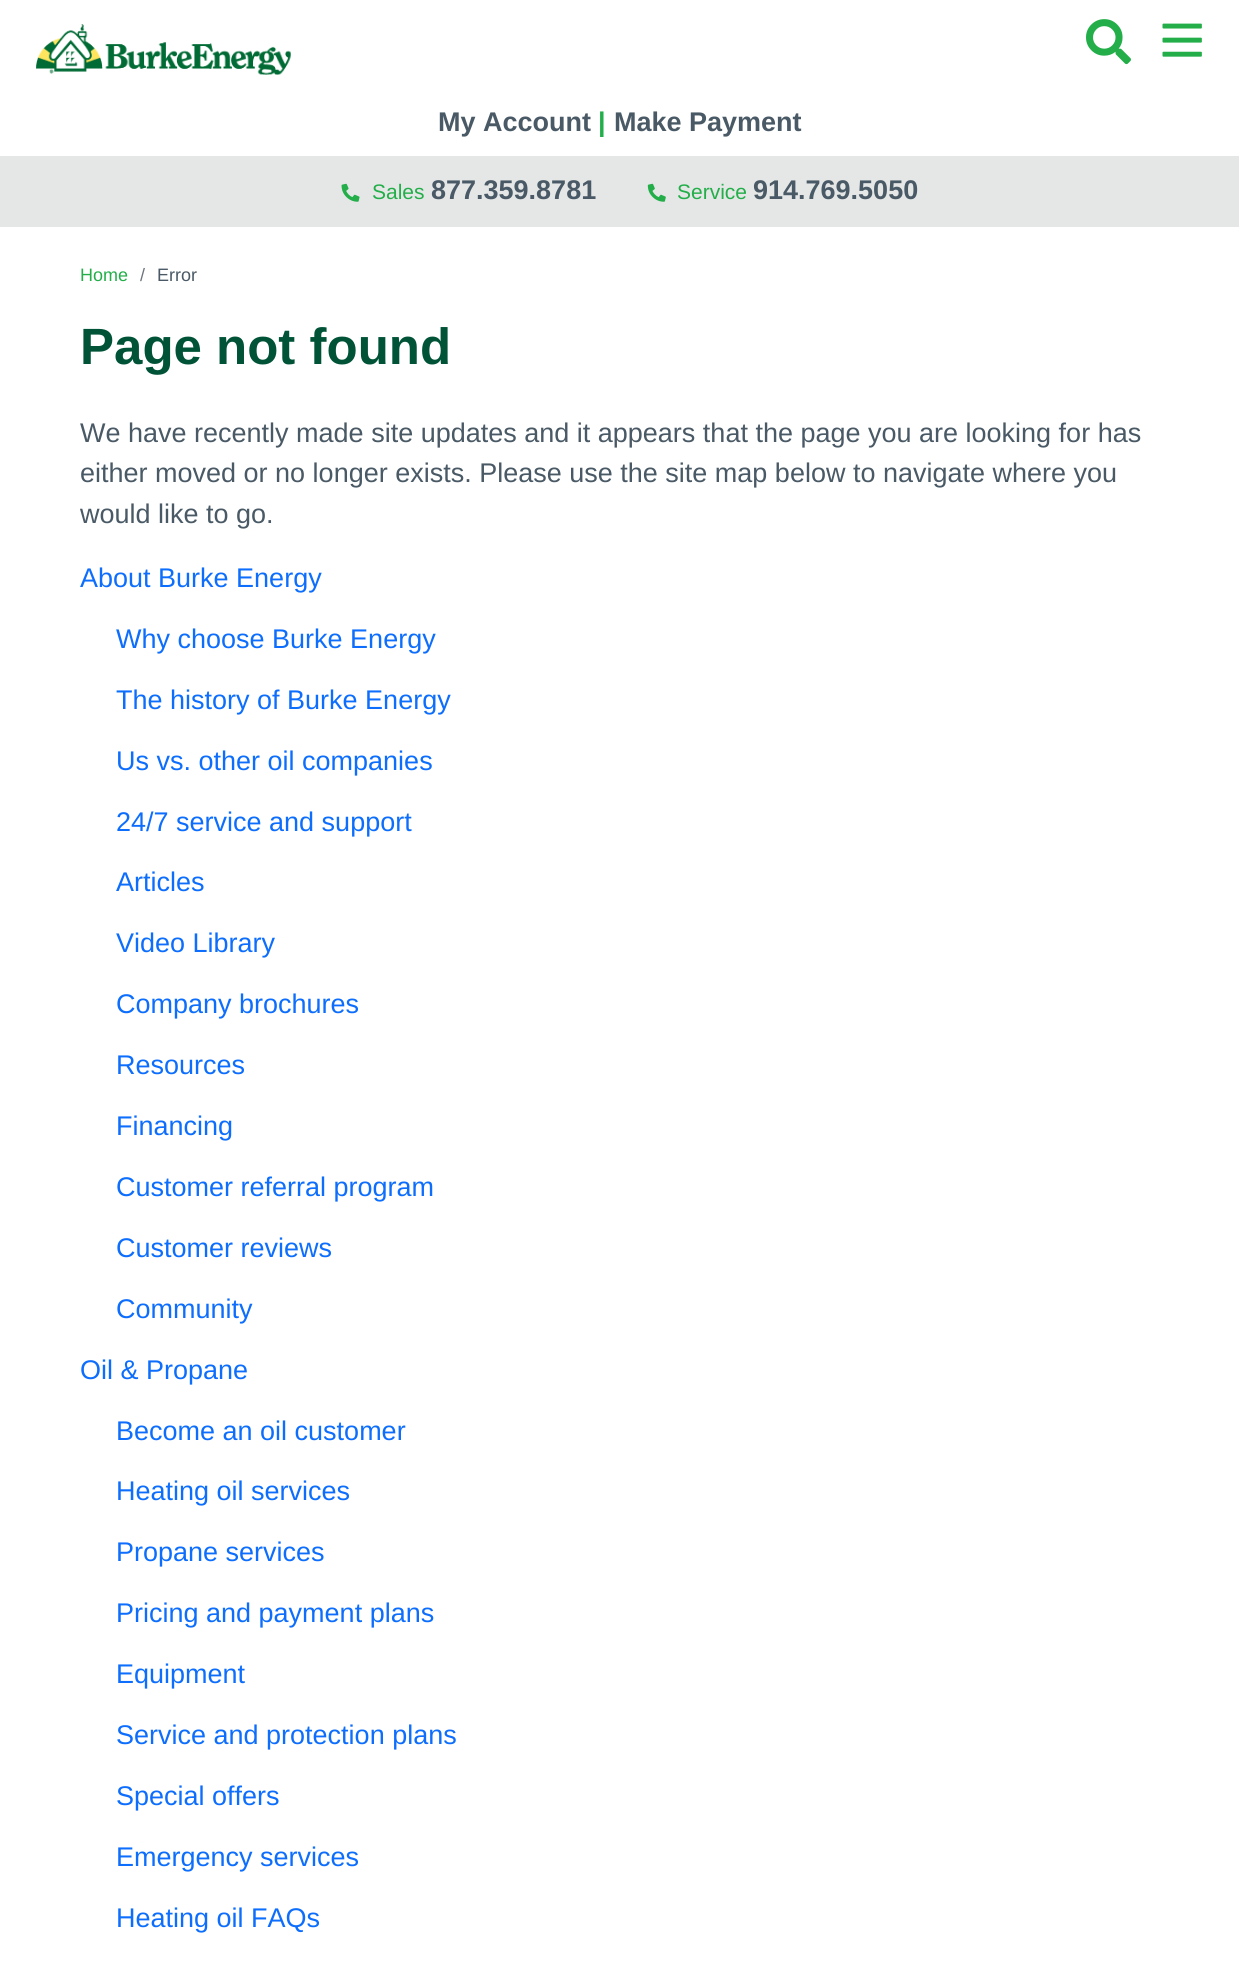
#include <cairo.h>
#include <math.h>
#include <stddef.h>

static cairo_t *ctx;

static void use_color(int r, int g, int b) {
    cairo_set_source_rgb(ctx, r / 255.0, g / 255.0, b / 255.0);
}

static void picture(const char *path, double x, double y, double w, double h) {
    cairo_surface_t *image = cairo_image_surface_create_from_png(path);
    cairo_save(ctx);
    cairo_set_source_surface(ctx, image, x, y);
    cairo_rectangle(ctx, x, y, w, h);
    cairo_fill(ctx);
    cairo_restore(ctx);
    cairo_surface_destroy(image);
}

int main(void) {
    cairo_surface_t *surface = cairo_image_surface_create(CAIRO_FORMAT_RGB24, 1239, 1968);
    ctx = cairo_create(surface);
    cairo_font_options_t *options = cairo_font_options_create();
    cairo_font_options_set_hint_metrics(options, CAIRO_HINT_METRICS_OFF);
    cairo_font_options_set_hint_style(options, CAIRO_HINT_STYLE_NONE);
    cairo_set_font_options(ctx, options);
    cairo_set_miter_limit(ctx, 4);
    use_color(255, 255, 255);
    cairo_paint(ctx);
    picture("img1.png", 36, 24, 255, 51);
    picture("img2.png", 1086, 19, 45, 46);
    picture("img3.png", 1162, 23, 40, 34);
    cairo_select_font_face(ctx, "Liberation Sans", CAIRO_FONT_SLANT_NORMAL, CAIRO_FONT_WEIGHT_BOLD);
    cairo_set_font_size(ctx, 27);
    use_color(73, 89, 101);
    cairo_move_to(ctx, 438, 131);
    cairo_show_text(ctx, "My Account");
    use_color(35, 174, 73);
    cairo_move_to(ctx, 598, 131);
    cairo_show_text(ctx, "|");
    use_color(73, 89, 101);
    cairo_move_to(ctx, 614, 131);
    cairo_show_text(ctx, "Make Payment");
    use_color(229, 231, 231);
    cairo_rectangle(ctx, 0, 156, 1239, 71);
    cairo_fill(ctx);
    picture("img4.png", 341, 183, 19, 19);
    cairo_select_font_face(ctx, "Liberation Sans", CAIRO_FONT_SLANT_NORMAL, CAIRO_FONT_WEIGHT_NORMAL);
    cairo_set_font_size(ctx, 21);
    use_color(35, 174, 73);
    cairo_move_to(ctx, 372, 199);
    cairo_show_text(ctx, "Sales");
    cairo_select_font_face(ctx, "Liberation Sans", CAIRO_FONT_SLANT_NORMAL, CAIRO_FONT_WEIGHT_BOLD);
    cairo_set_font_size(ctx, 27);
    use_color(73, 89, 101);
    cairo_move_to(ctx, 431, 199);
    cairo_show_text(ctx, "877.359.8781");
    picture("img5.png", 647, 183, 19, 19);
    cairo_select_font_face(ctx, "Liberation Sans", CAIRO_FONT_SLANT_NORMAL, CAIRO_FONT_WEIGHT_NORMAL);
    cairo_set_font_size(ctx, 21);
    use_color(35, 174, 73);
    cairo_move_to(ctx, 677, 199);
    cairo_show_text(ctx, "Service");
    cairo_select_font_face(ctx, "Liberation Sans", CAIRO_FONT_SLANT_NORMAL, CAIRO_FONT_WEIGHT_BOLD);
    cairo_set_font_size(ctx, 27);
    use_color(73, 89, 101);
    cairo_move_to(ctx, 753, 199);
    cairo_show_text(ctx, "914.769.5050");
    cairo_select_font_face(ctx, "Liberation Sans", CAIRO_FONT_SLANT_NORMAL, CAIRO_FONT_WEIGHT_NORMAL);
    cairo_set_font_size(ctx, 18);
    use_color(35, 174, 73);
    cairo_move_to(ctx, 80, 281);
    cairo_show_text(ctx, "Home");
    use_color(108, 117, 125);
    cairo_move_to(ctx, 140, 281);
    cairo_show_text(ctx, "/");
    use_color(73, 89, 101);
    cairo_move_to(ctx, 157, 281);
    cairo_show_text(ctx, "Error");
    cairo_select_font_face(ctx, "Liberation Sans", CAIRO_FONT_SLANT_NORMAL, CAIRO_FONT_WEIGHT_BOLD);
    cairo_set_font_size(ctx, 51);
    use_color(0, 83, 54);
    cairo_move_to(ctx, 80, 364);
    cairo_show_text(ctx, "Page not found");
    cairo_select_font_face(ctx, "Liberation Sans", CAIRO_FONT_SLANT_NORMAL, CAIRO_FONT_WEIGHT_NORMAL);
    cairo_set_font_size(ctx, 27);
    use_color(73, 89, 101);
    cairo_move_to(ctx, 80, 442);
    cairo_show_text(ctx, "We have recently made site updates and it appears that the page you are looking for has");
    cairo_move_to(ctx, 80, 482);
    cairo_show_text(ctx, "either moved or no longer exists. Please use the site map below to navigate where you");
    cairo_move_to(ctx, 80, 523);
    cairo_show_text(ctx, "would like to go.");
    use_color(13, 110, 253);
    cairo_move_to(ctx, 80, 587);
    cairo_show_text(ctx, "About Burke Energy");
    cairo_move_to(ctx, 116, 648);
    cairo_show_text(ctx, "Why choose Burke Energy");
    cairo_move_to(ctx, 116, 709);
    cairo_show_text(ctx, "The history of Burke Energy");
    cairo_move_to(ctx, 116, 770);
    cairo_show_text(ctx, "Us vs. other oil companies");
    cairo_move_to(ctx, 116, 831);
    cairo_show_text(ctx, "24/7 service and support");
    cairo_move_to(ctx, 116, 891);
    cairo_show_text(ctx, "Articles");
    cairo_move_to(ctx, 116, 952);
    cairo_show_text(ctx, "Video Library");
    cairo_move_to(ctx, 116, 1013);
    cairo_show_text(ctx, "Company brochures");
    cairo_move_to(ctx, 116, 1074);
    cairo_show_text(ctx, "Resources");
    cairo_move_to(ctx, 116, 1135);
    cairo_show_text(ctx, "Financing");
    cairo_move_to(ctx, 116, 1196);
    cairo_show_text(ctx, "Customer referral program");
    cairo_move_to(ctx, 116, 1257);
    cairo_show_text(ctx, "Customer reviews");
    cairo_move_to(ctx, 116, 1318);
    cairo_show_text(ctx, "Community");
    cairo_move_to(ctx, 80, 1379);
    cairo_show_text(ctx, "Oil & Propane");
    cairo_move_to(ctx, 116, 1440);
    cairo_show_text(ctx, "Become an oil customer");
    cairo_move_to(ctx, 116, 1500);
    cairo_show_text(ctx, "Heating oil services");
    cairo_move_to(ctx, 116, 1561);
    cairo_show_text(ctx, "Propane services");
    cairo_move_to(ctx, 116, 1622);
    cairo_show_text(ctx, "Pricing and payment plans");
    cairo_move_to(ctx, 116, 1683);
    cairo_show_text(ctx, "Equipment");
    cairo_move_to(ctx, 116, 1744);
    cairo_show_text(ctx, "Service and protection plans");
    cairo_move_to(ctx, 116, 1805);
    cairo_show_text(ctx, "Special offers");
    cairo_move_to(ctx, 116, 1866);
    cairo_show_text(ctx, "Emergency services");
    cairo_move_to(ctx, 116, 1927);
    cairo_show_text(ctx, "Heating oil FAQs");
    cairo_surface_write_to_png(surface, "result.png");
    cairo_font_options_destroy(options);
    cairo_destroy(ctx);
    cairo_surface_destroy(surface);
    return 0;
}
